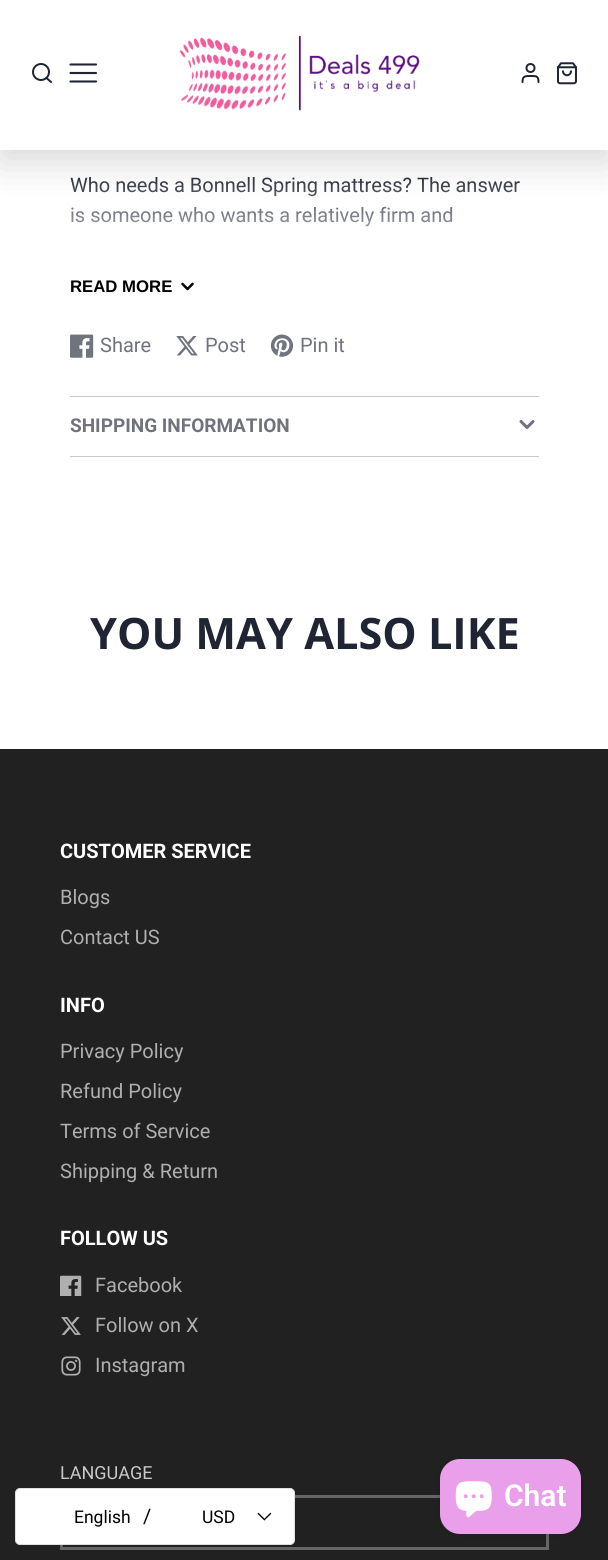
#include <cairo.h>
#include <math.h>
#include <stddef.h>

static cairo_t *ctx;

static void use_color(int r, int g, int b) {
    cairo_set_source_rgb(ctx, r / 255.0, g / 255.0, b / 255.0);
}

static void round_rect(double x, double y, double w, double h, double r) {
    cairo_new_sub_path(ctx);
    cairo_arc(ctx, x + w - r, y + h - r, r, 0, M_PI / 2);
    cairo_arc(ctx, x + r, y + h - r, r, M_PI / 2, M_PI);
    cairo_arc(ctx, x + r, y + r, r, M_PI, 1.5 * M_PI);
    cairo_arc(ctx, x + w - r, y + r, r, 1.5 * M_PI, 2 * M_PI);
    cairo_close_path(ctx);
}

static void shadow(double x, double y, double w, double h, double r, double blur, double alpha) {
    cairo_push_group_with_content(ctx, CAIRO_CONTENT_ALPHA);
    cairo_set_operator(ctx, CAIRO_OPERATOR_SOURCE);
    for (int i = 15; i >= -15 && fmin(w, h) + blur * i / 3 > 0; i -= 2) {
        double e = blur * i / 6;
        cairo_set_source_rgba(ctx, 0, 0, 0, alpha * erfc((i - 1) / 8.5) / 2);
        round_rect(x - e, y - e, w + 2 * e, h + 2 * e, fmax(0, fmin(r + e + blur * .6, fmin(w, h) / 2 + e)));
        cairo_fill(ctx);
    }
    cairo_pattern_t *soft = cairo_pop_group(ctx);
    cairo_mask(ctx, soft);
    cairo_pattern_destroy(soft);
}

static void picture(const char *path, double x, double y, double w, double h) {
    cairo_surface_t *image = cairo_image_surface_create_from_png(path);
    cairo_save(ctx);
    cairo_set_source_surface(ctx, image, x, y);
    cairo_rectangle(ctx, x, y, w, h);
    cairo_fill(ctx);
    cairo_restore(ctx);
    cairo_surface_destroy(image);
}

int main(void) {
    cairo_surface_t *surface = cairo_image_surface_create(CAIRO_FORMAT_RGB24, 608, 1560);
    ctx = cairo_create(surface);
    cairo_font_options_t *options = cairo_font_options_create();
    cairo_font_options_set_hint_metrics(options, CAIRO_HINT_METRICS_OFF);
    cairo_font_options_set_hint_style(options, CAIRO_HINT_STYLE_NONE);
    cairo_set_font_options(ctx, options);
    cairo_set_miter_limit(ctx, 4);
    cairo_pattern_t *gradient;
    use_color(255, 255, 255);
    cairo_paint(ctx);
    cairo_select_font_face(ctx, "Roboto", CAIRO_FONT_SLANT_NORMAL, CAIRO_FONT_WEIGHT_NORMAL);
    cairo_set_font_size(ctx, 20);
    use_color(31, 37, 50);
    cairo_move_to(ctx, 70, 192);
    cairo_show_text(ctx, "Who needs a Bonnell Spring mattress? The answer");
    cairo_move_to(ctx, 70, 222);
    cairo_show_text(ctx, "is someone who wants a relatively firm and");
    gradient = cairo_pattern_create_linear(304, 296, 304, 171);
    cairo_pattern_add_color_stop_rgba(gradient, 0.15, 1, 1, 1, 1);
    cairo_pattern_add_color_stop_rgba(gradient, 1, 1, 1, 1, 0);
    cairo_set_source(ctx, gradient);
    cairo_pattern_destroy(gradient);
    cairo_rectangle(ctx, 70, 177, 450, 50);
    cairo_fill(ctx);
    use_color(0, 0, 0);
    shadow(0, 13, 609, 150, 0, 19, 0.15);
    use_color(255, 255, 255);
    cairo_rectangle(ctx, 0, 0, 608, 150);
    cairo_fill(ctx);
    cairo_arc(ctx, 41, 72, 8, 0, 2 * M_PI);
    use_color(31, 37, 50);
    cairo_stroke(ctx);
    cairo_new_path(ctx);
    cairo_move_to(ctx, 51, 82);
    cairo_line_to(ctx, 46.5, 78);
    cairo_set_line_cap(ctx, CAIRO_LINE_CAP_ROUND);
    cairo_set_line_join(ctx, CAIRO_LINE_JOIN_ROUND);
    cairo_stroke(ctx);
    cairo_new_path(ctx);
    cairo_move_to(ctx, 70.5, 73);
    cairo_line_to(ctx, 96, 73);
    cairo_move_to(ctx, 70.5, 64.5);
    cairo_line_to(ctx, 96, 64.5);
    cairo_move_to(ctx, 70.5, 81.5);
    cairo_line_to(ctx, 96, 81.5);
    cairo_set_line_width(ctx, 2.1);
    cairo_stroke(ctx);
    picture("img1.png", 179, 36, 241, 75);
    cairo_arc(ctx, 530.5, 68, 4, 0, 2 * M_PI);
    cairo_set_line_width(ctx, 2);
    cairo_set_line_cap(ctx, CAIRO_LINE_CAP_BUTT);
    cairo_set_line_join(ctx, CAIRO_LINE_JOIN_MITER);
    cairo_stroke(ctx);
    cairo_new_path(ctx);
    cairo_move_to(ctx, 538.5, 82);
    cairo_curve_to(ctx, 538.5, 76, 536.5, 76, 530.5, 76);
    cairo_curve_to(ctx, 525, 76, 522.5, 76, 522.5, 82);
    cairo_set_line_cap(ctx, CAIRO_LINE_CAP_ROUND);
    cairo_set_line_join(ctx, CAIRO_LINE_JOIN_ROUND);
    cairo_stroke(ctx);
    picture("img2.png", 557, 62, 20, 23);
    cairo_select_font_face(ctx, "Liberation Sans", CAIRO_FONT_SLANT_NORMAL, CAIRO_FONT_WEIGHT_BOLD);
    cairo_set_font_size(ctx, 16.75);
    use_color(0, 0, 0);
    cairo_move_to(ctx, 70, 292);
    cairo_show_text(ctx, "READ MORE");
    cairo_new_path(ctx);
    cairo_move_to(ctx, 182.5, 284);
    cairo_line_to(ctx, 187.5, 289);
    cairo_line_to(ctx, 192.5, 284);
    cairo_set_line_width(ctx, 2.5);
    cairo_stroke(ctx);
    picture("img3.png", 70, 334, 24, 24);
    cairo_select_font_face(ctx, "Roboto", CAIRO_FONT_SLANT_NORMAL, CAIRO_FONT_WEIGHT_NORMAL);
    cairo_set_font_size(ctx, 20);
    use_color(112, 115, 124);
    cairo_move_to(ctx, 100, 352);
    cairo_show_text(ctx, "Share");
    picture("img4.png", 176, 336, 22, 20);
    cairo_move_to(ctx, 205, 352);
    cairo_show_text(ctx, "Post");
    picture("img5.png", 270, 334, 23, 23);
    cairo_move_to(ctx, 300, 352);
    cairo_show_text(ctx, "Pin it");
    use_color(199, 201, 204);
    cairo_rectangle(ctx, 70, 396, 469, 1);
    cairo_fill(ctx);
    cairo_select_font_face(ctx, "Roboto", CAIRO_FONT_SLANT_NORMAL, CAIRO_FONT_WEIGHT_BOLD);
    cairo_set_font_size(ctx, 19);
    use_color(112, 115, 124);
    cairo_move_to(ctx, 70, 432);
    cairo_show_text(ctx, "SHIPPING INFORMATION");
    cairo_new_path(ctx);
    cairo_move_to(ctx, 521, 421.5);
    cairo_line_to(ctx, 527, 427.5);
    cairo_line_to(ctx, 533, 421.5);
    cairo_set_line_width(ctx, 3);
    cairo_stroke(ctx);
    use_color(199, 201, 204);
    cairo_rectangle(ctx, 70, 456, 469, 1);
    cairo_fill(ctx);
    cairo_select_font_face(ctx, "Open Sans", CAIRO_FONT_SLANT_NORMAL, CAIRO_FONT_WEIGHT_BOLD);
    cairo_set_font_size(ctx, 43.25);
    use_color(31, 37, 50);
    cairo_move_to(ctx, 90, 649);
    cairo_show_text(ctx, "YOU MAY ALSO LIKE");
    use_color(33, 33, 33);
    cairo_rectangle(ctx, 0, 749, 608, 811);
    cairo_fill(ctx);
    cairo_select_font_face(ctx, "Roboto", CAIRO_FONT_SLANT_NORMAL, CAIRO_FONT_WEIGHT_BOLD);
    cairo_set_font_size(ctx, 20);
    use_color(255, 255, 255);
    cairo_move_to(ctx, 60, 858);
    cairo_show_text(ctx, "CUSTOMER SERVICE");
    cairo_select_font_face(ctx, "Roboto", CAIRO_FONT_SLANT_NORMAL, CAIRO_FONT_WEIGHT_NORMAL);
    use_color(175, 175, 175);
    cairo_move_to(ctx, 60, 904);
    cairo_show_text(ctx, "Blogs");
    cairo_move_to(ctx, 60, 944);
    cairo_show_text(ctx, "Contact US");
    cairo_select_font_face(ctx, "Roboto", CAIRO_FONT_SLANT_NORMAL, CAIRO_FONT_WEIGHT_BOLD);
    use_color(255, 255, 255);
    cairo_move_to(ctx, 60, 1012);
    cairo_show_text(ctx, "INFO");
    cairo_select_font_face(ctx, "Roboto", CAIRO_FONT_SLANT_NORMAL, CAIRO_FONT_WEIGHT_NORMAL);
    use_color(175, 175, 175);
    cairo_move_to(ctx, 60, 1058);
    cairo_show_text(ctx, "Privacy Policy");
    cairo_move_to(ctx, 60, 1098);
    cairo_show_text(ctx, "Refund Policy");
    cairo_move_to(ctx, 60, 1138);
    cairo_show_text(ctx, "Terms of Service");
    cairo_move_to(ctx, 60, 1178);
    cairo_show_text(ctx, "Shipping & Return");
    cairo_select_font_face(ctx, "Roboto", CAIRO_FONT_SLANT_NORMAL, CAIRO_FONT_WEIGHT_BOLD);
    use_color(255, 255, 255);
    cairo_move_to(ctx, 60, 1245);
    cairo_show_text(ctx, "FOLLOW US");
    picture("img6.png", 60, 1275, 22, 21);
    cairo_select_font_face(ctx, "Roboto", CAIRO_FONT_SLANT_NORMAL, CAIRO_FONT_WEIGHT_NORMAL);
    use_color(175, 175, 175);
    cairo_move_to(ctx, 95, 1292);
    cairo_show_text(ctx, "Facebook");
    picture("img7.png", 61, 1317, 20, 18);
    cairo_move_to(ctx, 95, 1332);
    cairo_show_text(ctx, "Follow on X");
    picture("img8.png", 61, 1356, 20, 20);
    cairo_move_to(ctx, 95, 1372);
    cairo_show_text(ctx, "Instagram");
    cairo_set_font_size(ctx, 18);
    use_color(200, 200, 200);
    cairo_move_to(ctx, 60, 1479);
    cairo_show_text(ctx, "LANGUAGE");
    cairo_rectangle(ctx, 61.5, 1496.5, 486, 52);
    use_color(102, 102, 102);
    cairo_set_line_cap(ctx, CAIRO_LINE_CAP_BUTT);
    cairo_set_line_join(ctx, CAIRO_LINE_JOIN_MITER);
    cairo_stroke(ctx);
    use_color(0, 0, 0);
    shadow(440, 1459, 141, 75, 20, 3, 0.15);
    use_color(234, 159, 234);
    round_rect(440, 1459, 141, 75, 20);
    cairo_fill(ctx);
    picture("img9.png", 455, 1481, 37, 37);
    cairo_select_font_face(ctx, "Roboto SemiBold", CAIRO_FONT_SLANT_NORMAL, CAIRO_FONT_WEIGHT_NORMAL);
    cairo_set_font_size(ctx, 30);
    use_color(255, 255, 255);
    cairo_move_to(ctx, 504, 1506);
    cairo_show_text(ctx, "Chat");
    round_rect(15.5, 1488.5, 279, 56, 4.5);
    cairo_fill_preserve(ctx);
    use_color(224, 224, 224);
    cairo_set_line_width(ctx, 1);
    cairo_stroke(ctx);
    cairo_select_font_face(ctx, "Roboto", CAIRO_FONT_SLANT_NORMAL, CAIRO_FONT_WEIGHT_NORMAL);
    cairo_set_font_size(ctx, 17.5);
    use_color(0, 0, 0);
    cairo_move_to(ctx, 74, 1523);
    cairo_show_text(ctx, "English");
    cairo_set_font_size(ctx, 20);
    cairo_move_to(ctx, 143, 1523);
    cairo_show_text(ctx, "/");
    cairo_set_font_size(ctx, 17.5);
    cairo_move_to(ctx, 202, 1523);
    cairo_show_text(ctx, "USD");
    picture("img10.png", 257, 1512, 15, 9);
    cairo_surface_write_to_png(surface, "result.png");
    cairo_font_options_destroy(options);
    cairo_destroy(ctx);
    cairo_surface_destroy(surface);
    return 0;
}
